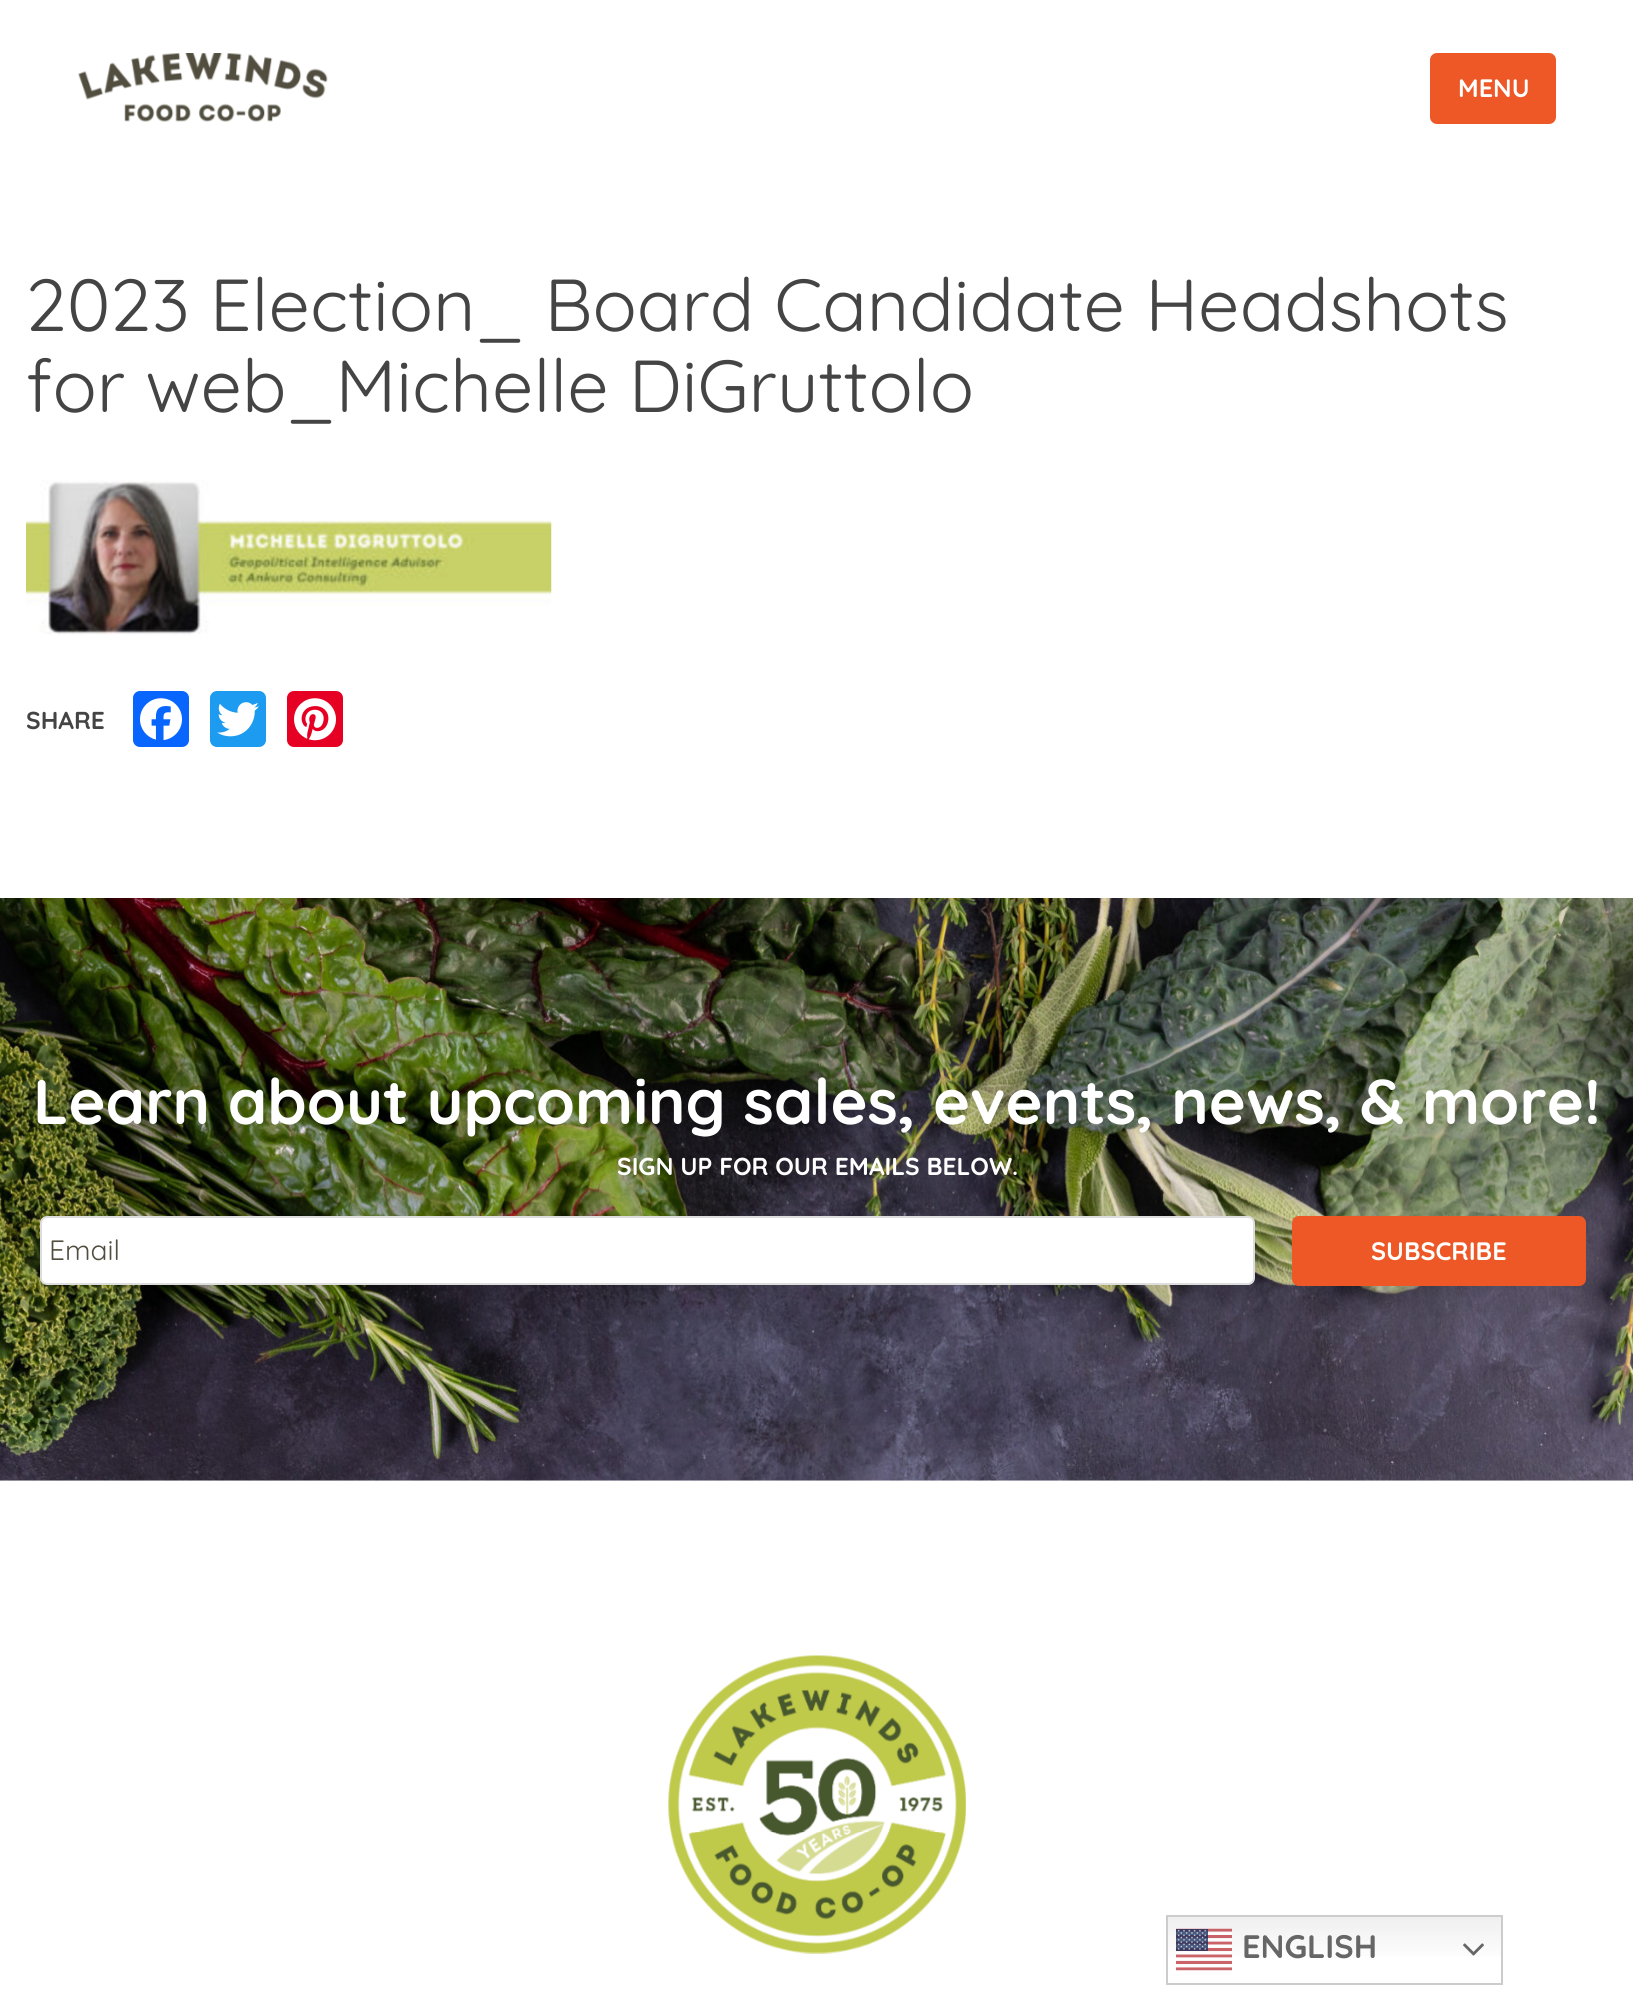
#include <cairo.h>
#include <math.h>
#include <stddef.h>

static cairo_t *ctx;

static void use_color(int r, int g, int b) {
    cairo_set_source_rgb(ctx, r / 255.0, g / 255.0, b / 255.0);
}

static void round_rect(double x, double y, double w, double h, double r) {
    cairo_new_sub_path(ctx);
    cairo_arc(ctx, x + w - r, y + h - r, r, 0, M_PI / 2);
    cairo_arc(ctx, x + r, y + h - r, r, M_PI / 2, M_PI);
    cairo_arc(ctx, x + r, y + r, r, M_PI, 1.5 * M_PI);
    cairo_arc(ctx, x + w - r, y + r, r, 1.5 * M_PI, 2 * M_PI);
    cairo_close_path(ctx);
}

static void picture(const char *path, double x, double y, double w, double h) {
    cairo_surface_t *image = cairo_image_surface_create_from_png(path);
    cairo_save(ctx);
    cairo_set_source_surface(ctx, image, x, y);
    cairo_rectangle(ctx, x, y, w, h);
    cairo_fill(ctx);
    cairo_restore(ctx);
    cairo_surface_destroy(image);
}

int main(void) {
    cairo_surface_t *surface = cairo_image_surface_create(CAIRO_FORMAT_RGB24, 1633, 1995);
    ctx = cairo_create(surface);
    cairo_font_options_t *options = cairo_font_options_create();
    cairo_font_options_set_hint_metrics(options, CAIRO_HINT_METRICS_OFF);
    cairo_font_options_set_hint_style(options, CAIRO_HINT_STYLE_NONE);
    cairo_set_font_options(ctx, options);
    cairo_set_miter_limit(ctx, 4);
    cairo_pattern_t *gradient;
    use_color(255, 255, 255);
    cairo_paint(ctx);
    picture("img1.png", 78, 53, 250, 69);
    use_color(237, 88, 38);
    round_rect(1430, 53, 126, 71, 7);
    cairo_fill(ctx);
    cairo_select_font_face(ctx, "Quicksand", CAIRO_FONT_SLANT_NORMAL, CAIRO_FONT_WEIGHT_BOLD);
    cairo_set_font_size(ctx, 25.25);
    use_color(255, 255, 255);
    cairo_move_to(ctx, 1458, 97);
    cairo_show_text(ctx, "MENU");
    cairo_select_font_face(ctx, "Quicksand", CAIRO_FONT_SLANT_NORMAL, CAIRO_FONT_WEIGHT_NORMAL);
    cairo_set_font_size(ctx, 73.5);
    use_color(68, 68, 68);
    cairo_move_to(ctx, 26, 331);
    cairo_show_text(ctx, "2023 Election_ Board Candidate Headshots");
    cairo_move_to(ctx, 26, 412);
    cairo_show_text(ctx, "for web_Michelle DiGruttolo");
    picture("img2.png", 26, 480, 526, 155);
    cairo_select_font_face(ctx, "Quicksand", CAIRO_FONT_SLANT_NORMAL, CAIRO_FONT_WEIGHT_BOLD);
    cairo_set_font_size(ctx, 24.5);
    cairo_move_to(ctx, 26, 729);
    cairo_show_text(ctx, "SHARE");
    use_color(8, 102, 255);
    round_rect(133, 691, 56, 56, 7);
    cairo_fill(ctx);
    picture("img3.png", 140, 698, 42, 43);
    use_color(29, 155, 240);
    round_rect(210, 691, 56, 56, 7);
    cairo_fill(ctx);
    picture("img4.png", 217, 702, 42, 35);
    use_color(230, 0, 35);
    round_rect(287, 691, 56, 56, 7);
    cairo_fill(ctx);
    picture("img5.png", 294, 698, 42, 43);
    picture("img6.png", 0, 898, 1633, 583);
    cairo_set_font_size(ctx, 63);
    use_color(255, 255, 255);
    cairo_move_to(ctx, 33, 1124);
    cairo_show_text(ctx, "Learn about upcoming sales, events, news, & more!");
    cairo_set_font_size(ctx, 24.5);
    cairo_move_to(ctx, 617, 1175);
    cairo_show_text(ctx, "SIGN UP FOR OUR EMAILS BELOW.");
    round_rect(41, 1217, 1213, 67, 6);
    cairo_fill_preserve(ctx);
    use_color(221, 221, 221);
    cairo_stroke(ctx);
    cairo_select_font_face(ctx, "Quicksand", CAIRO_FONT_SLANT_NORMAL, CAIRO_FONT_WEIGHT_NORMAL);
    cairo_set_font_size(ctx, 28);
    use_color(81, 78, 63);
    cairo_move_to(ctx, 49, 1260);
    cairo_show_text(ctx, "Email");
    use_color(237, 88, 38);
    round_rect(1292, 1216, 294, 70, 7);
    cairo_fill(ctx);
    cairo_select_font_face(ctx, "Quicksand", CAIRO_FONT_SLANT_NORMAL, CAIRO_FONT_WEIGHT_BOLD);
    cairo_set_font_size(ctx, 25.25);
    use_color(255, 255, 255);
    cairo_move_to(ctx, 1371, 1260);
    cairo_show_text(ctx, "SUBSCRIBE");
    picture("img7.png", 668, 1655, 298, 299);
    gradient = cairo_pattern_create_linear(1334, 1915, 1334, 1985);
    cairo_pattern_add_color_stop_rgba(gradient, 0, 0.937, 0.937, 0.937, 1);
    cairo_pattern_add_color_stop_rgba(gradient, 0.7, 1, 1, 1, 1);
    cairo_set_source(ctx, gradient);
    cairo_pattern_destroy(gradient);
    cairo_rectangle(ctx, 1168, 1917, 333, 39);
    cairo_fill(ctx);
    cairo_rectangle(ctx, 1167, 1916, 335, 68);
    use_color(204, 204, 204);
    cairo_stroke(ctx);
    picture("img8.png", 1176, 1928, 56, 43);
    cairo_set_font_size(ctx, 32.5);
    use_color(102, 102, 102);
    cairo_move_to(ctx, 1242, 1958);
    cairo_show_text(ctx, "ENGLISH");
    picture("img9.png", 1463, 1943, 21, 13);
    cairo_surface_write_to_png(surface, "result.png");
    cairo_font_options_destroy(options);
    cairo_destroy(ctx);
    cairo_surface_destroy(surface);
    return 0;
}
